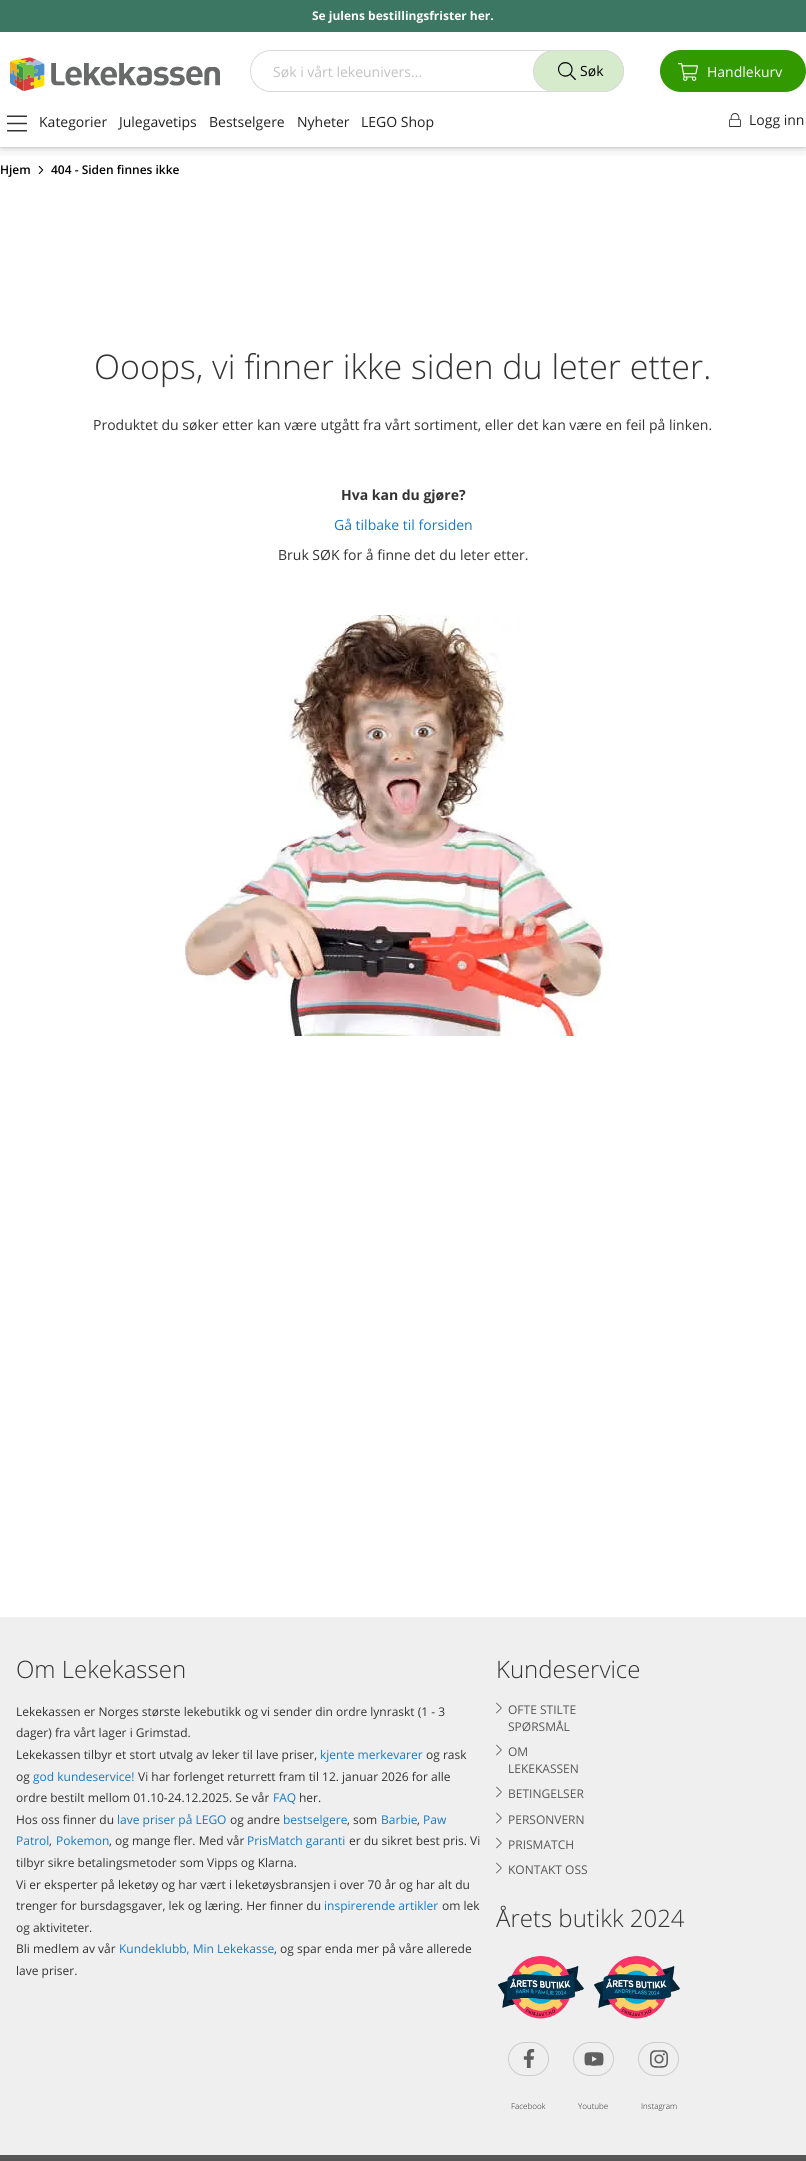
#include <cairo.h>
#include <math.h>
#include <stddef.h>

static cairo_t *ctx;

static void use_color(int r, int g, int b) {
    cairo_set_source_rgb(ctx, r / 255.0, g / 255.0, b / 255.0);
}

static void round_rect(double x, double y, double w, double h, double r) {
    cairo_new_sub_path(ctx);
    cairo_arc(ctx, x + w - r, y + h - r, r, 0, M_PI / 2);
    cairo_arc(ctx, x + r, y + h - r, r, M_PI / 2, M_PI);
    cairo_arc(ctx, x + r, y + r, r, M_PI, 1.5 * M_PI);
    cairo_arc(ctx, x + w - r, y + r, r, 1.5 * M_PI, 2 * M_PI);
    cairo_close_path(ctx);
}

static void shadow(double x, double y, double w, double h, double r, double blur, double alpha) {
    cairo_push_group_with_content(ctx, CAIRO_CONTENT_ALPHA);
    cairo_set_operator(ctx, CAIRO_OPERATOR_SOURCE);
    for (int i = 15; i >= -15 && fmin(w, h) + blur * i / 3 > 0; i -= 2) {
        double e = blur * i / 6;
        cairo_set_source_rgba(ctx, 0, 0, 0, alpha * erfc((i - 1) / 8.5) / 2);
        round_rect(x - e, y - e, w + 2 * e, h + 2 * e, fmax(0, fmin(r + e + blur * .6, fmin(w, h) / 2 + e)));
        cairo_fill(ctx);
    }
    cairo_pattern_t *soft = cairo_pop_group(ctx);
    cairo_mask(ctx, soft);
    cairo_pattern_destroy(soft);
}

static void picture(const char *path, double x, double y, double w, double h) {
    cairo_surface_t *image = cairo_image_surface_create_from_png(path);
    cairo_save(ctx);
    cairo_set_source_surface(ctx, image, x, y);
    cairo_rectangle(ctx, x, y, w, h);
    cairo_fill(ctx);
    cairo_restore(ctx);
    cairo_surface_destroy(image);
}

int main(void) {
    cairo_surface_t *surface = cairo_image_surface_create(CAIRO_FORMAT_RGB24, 806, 2161);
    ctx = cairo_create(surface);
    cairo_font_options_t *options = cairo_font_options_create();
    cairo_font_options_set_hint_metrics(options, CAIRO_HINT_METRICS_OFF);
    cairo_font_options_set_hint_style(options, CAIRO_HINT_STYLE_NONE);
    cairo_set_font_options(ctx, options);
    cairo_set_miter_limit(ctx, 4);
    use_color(255, 255, 255);
    cairo_paint(ctx);
    picture("img6.png", 38, 166, 6, 8);
    cairo_save(ctx);
    cairo_rectangle(ctx, 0, 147, 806, 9);
    cairo_clip(ctx);
    use_color(0, 0, 0);
    shadow(0, 8, 806, 147, 0, 4, 0.05);
    cairo_restore(ctx);
    cairo_save(ctx);
    cairo_rectangle(ctx, 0, 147, 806, 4);
    cairo_clip(ctx);
    use_color(0, 0, 0);
    shadow(0, 4, 806, 147, 0, 2, 0.05);
    cairo_restore(ctx);
    cairo_save(ctx);
    cairo_rectangle(ctx, 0, 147, 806, 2);
    cairo_clip(ctx);
    use_color(0, 0, 0);
    shadow(0, 2, 806, 147, 0, 1, 0.05);
    cairo_restore(ctx);
    cairo_save(ctx);
    cairo_rectangle(ctx, 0, 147, 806, 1);
    cairo_clip(ctx);
    use_color(0, 0, 0);
    shadow(0, 1, 806, 147, 0, 0.5, 0.05);
    cairo_restore(ctx);
    use_color(59, 119, 98);
    cairo_rectangle(ctx, 0, 0, 806, 32);
    cairo_fill(ctx);
    cairo_select_font_face(ctx, "Open Sans", CAIRO_FONT_SLANT_NORMAL, CAIRO_FONT_WEIGHT_BOLD);
    cairo_set_font_size(ctx, 12);
    use_color(255, 255, 255);
    cairo_move_to(ctx, 312, 20);
    cairo_show_text(ctx, "Se julens bestillingsfrister her.");
    picture("img1.png", 10, 57, 210, 34);
    round_rect(250.5, 50.5, 373, 41, 20.5);
    use_color(217, 217, 217);
    cairo_set_line_width(ctx, 1);
    cairo_stroke(ctx);
    cairo_select_font_face(ctx, "Open Sans", CAIRO_FONT_SLANT_NORMAL, CAIRO_FONT_WEIGHT_NORMAL);
    cairo_set_font_size(ctx, 14);
    use_color(194, 194, 194);
    cairo_move_to(ctx, 273, 77);
    cairo_show_text(ctx, "Søk i vårt lekeunivers...");
    use_color(214, 235, 204);
    round_rect(533.5, 50.5, 90, 41, 20.5);
    cairo_fill_preserve(ctx);
    use_color(217, 217, 217);
    cairo_stroke(ctx);
    picture("img2.png", 558, 62, 18, 18);
    use_color(0, 0, 0);
    cairo_move_to(ctx, 580, 76);
    cairo_show_text(ctx, "Søk");
    use_color(51, 153, 0);
    round_rect(660, 50, 146, 42, 21);
    cairo_fill(ctx);
    picture("img3.png", 678, 63, 20, 18);
    use_color(255, 255, 255);
    cairo_move_to(ctx, 707, 77);
    cairo_show_text(ctx, "Handlekurv");
    picture("img4.png", 7, 115, 20, 17);
    use_color(34, 34, 34);
    cairo_move_to(ctx, 39, 127);
    cairo_show_text(ctx, "Kategorier");
    cairo_move_to(ctx, 119, 127);
    cairo_show_text(ctx, "Julegavetips");
    cairo_move_to(ctx, 209, 127);
    cairo_show_text(ctx, "Bestselgere");
    cairo_move_to(ctx, 297, 127);
    cairo_show_text(ctx, "Nyheter");
    cairo_move_to(ctx, 361, 127);
    cairo_show_text(ctx, "LEGO Shop");
    picture("img5.png", 729, 113, 12, 14);
    cairo_move_to(ctx, 749, 125);
    cairo_show_text(ctx, "Logg inn");
    cairo_select_font_face(ctx, "Open Sans SemiBold", CAIRO_FONT_SLANT_NORMAL, CAIRO_FONT_WEIGHT_NORMAL);
    cairo_set_font_size(ctx, 12);
    use_color(0, 0, 0);
    cairo_move_to(ctx, 0, 174);
    cairo_show_text(ctx, "Hjem");
    cairo_move_to(ctx, 51, 174);
    cairo_show_text(ctx, "404 - Siden finnes ikke");
    cairo_select_font_face(ctx, "Open Sans Light", CAIRO_FONT_SLANT_NORMAL, CAIRO_FONT_WEIGHT_NORMAL);
    cairo_set_font_size(ctx, 34);
    use_color(51, 51, 51);
    cairo_move_to(ctx, 94, 379);
    cairo_show_text(ctx, "Ooops, vi finner ikke siden du leter etter.");
    cairo_select_font_face(ctx, "Open Sans", CAIRO_FONT_SLANT_NORMAL, CAIRO_FONT_WEIGHT_NORMAL);
    cairo_set_font_size(ctx, 14);
    cairo_move_to(ctx, 93, 430);
    cairo_show_text(ctx, "Produktet du søker etter kan være utgått fra vårt sortiment, eller det kan være en feil på linken.");
    cairo_select_font_face(ctx, "Open Sans", CAIRO_FONT_SLANT_NORMAL, CAIRO_FONT_WEIGHT_BOLD);
    cairo_move_to(ctx, 341, 500);
    cairo_show_text(ctx, "Hva kan du gjøre?");
    cairo_select_font_face(ctx, "Open Sans", CAIRO_FONT_SLANT_NORMAL, CAIRO_FONT_WEIGHT_NORMAL);
    use_color(25, 121, 195);
    cairo_move_to(ctx, 334, 530);
    cairo_show_text(ctx, "Gå tilbake til forsiden");
    use_color(51, 51, 51);
    cairo_move_to(ctx, 278, 560);
    cairo_show_text(ctx, "Bruk SØK for å finne det du leter etter.");
    picture("img7.png", 185, 615, 424, 421);
    use_color(239, 239, 239);
    cairo_rectangle(ctx, 0, 1617, 806, 538);
    cairo_fill(ctx);
    cairo_select_font_face(ctx, "Open Sans Light", CAIRO_FONT_SLANT_NORMAL, CAIRO_FONT_WEIGHT_NORMAL);
    cairo_set_font_size(ctx, 24);
    use_color(51, 51, 51);
    cairo_move_to(ctx, 16, 1678);
    cairo_show_text(ctx, "Om Lekekassen");
    cairo_select_font_face(ctx, "Open Sans", CAIRO_FONT_SLANT_NORMAL, CAIRO_FONT_WEIGHT_NORMAL);
    cairo_set_font_size(ctx, 12);
    cairo_move_to(ctx, 16, 1716);
    cairo_show_text(ctx, "Lekekassen er Norges største lekebutikk og vi sender din ordre lynraskt (1 - 3");
    cairo_move_to(ctx, 16, 1737);
    cairo_show_text(ctx, "dager) fra vårt lager i Grimstad.");
    cairo_move_to(ctx, 16, 1759);
    cairo_show_text(ctx, "Lekekassen tilbyr et stort utvalg av leker til lave priser,");
    use_color(25, 121, 195);
    cairo_move_to(ctx, 320, 1759);
    cairo_show_text(ctx, "kjente merkevarer");
    use_color(51, 51, 51);
    cairo_move_to(ctx, 426, 1759);
    cairo_show_text(ctx, "og rask");
    cairo_move_to(ctx, 16, 1781);
    cairo_show_text(ctx, "og");
    use_color(25, 121, 195);
    cairo_move_to(ctx, 33, 1781);
    cairo_show_text(ctx, "god kundeservice!");
    use_color(51, 51, 51);
    cairo_move_to(ctx, 138, 1781);
    cairo_show_text(ctx, "Vi har forlenget returrett fram til 12. januar 2026 for alle");
    cairo_move_to(ctx, 16, 1802);
    cairo_show_text(ctx, "ordre bestilt mellom 01.10-24.12.2025. Se vår");
    use_color(25, 121, 195);
    cairo_move_to(ctx, 273, 1802);
    cairo_show_text(ctx, "FAQ");
    use_color(51, 51, 51);
    cairo_move_to(ctx, 299, 1802);
    cairo_show_text(ctx, "her.");
    cairo_move_to(ctx, 16, 1824);
    cairo_show_text(ctx, "Hos oss finner du");
    use_color(25, 121, 195);
    cairo_move_to(ctx, 117, 1824);
    cairo_show_text(ctx, "lave priser på LEGO");
    use_color(51, 51, 51);
    cairo_move_to(ctx, 230, 1824);
    cairo_show_text(ctx, "og andre");
    use_color(25, 121, 195);
    cairo_move_to(ctx, 283, 1824);
    cairo_show_text(ctx, "bestselgere");
    use_color(51, 51, 51);
    cairo_move_to(ctx, 347, 1824);
    cairo_show_text(ctx, ", som");
    use_color(25, 121, 195);
    cairo_move_to(ctx, 381, 1824);
    cairo_show_text(ctx, "Barbie");
    use_color(51, 51, 51);
    cairo_move_to(ctx, 417, 1824);
    cairo_show_text(ctx, ",");
    use_color(25, 121, 195);
    cairo_move_to(ctx, 423, 1824);
    cairo_show_text(ctx, "Paw");
    cairo_move_to(ctx, 16, 1845);
    cairo_show_text(ctx, "Patrol");
    use_color(51, 51, 51);
    cairo_move_to(ctx, 49, 1845);
    cairo_show_text(ctx, ",");
    use_color(25, 121, 195);
    cairo_move_to(ctx, 56, 1845);
    cairo_show_text(ctx, "Pokemon");
    use_color(51, 51, 51);
    cairo_move_to(ctx, 109, 1845);
    cairo_show_text(ctx, ", og mange fler. Med vår");
    use_color(25, 121, 195);
    cairo_move_to(ctx, 247, 1845);
    cairo_show_text(ctx, "PrisMatch garanti");
    use_color(51, 51, 51);
    cairo_move_to(ctx, 349, 1845);
    cairo_show_text(ctx, "er du sikret best pris. Vi");
    cairo_move_to(ctx, 16, 1867);
    cairo_show_text(ctx, "tilbyr sikre betalingsmetoder som Vipps og Klarna.");
    cairo_move_to(ctx, 16, 1889);
    cairo_show_text(ctx, "Vi er eksperter på leketøy og har vært i leketøysbransjen i over 70 år og har alt du");
    cairo_move_to(ctx, 16, 1910);
    cairo_show_text(ctx, "trenger for bursdagsgaver, lek og læring. Her finner du");
    use_color(25, 121, 195);
    cairo_move_to(ctx, 324, 1910);
    cairo_show_text(ctx, "inspirerende artikler");
    use_color(51, 51, 51);
    cairo_move_to(ctx, 442, 1910);
    cairo_show_text(ctx, "om lek");
    cairo_move_to(ctx, 16, 1932);
    cairo_show_text(ctx, "og aktiviteter.");
    cairo_move_to(ctx, 16, 1953);
    cairo_show_text(ctx, "Bli medlem av vår");
    use_color(25, 121, 195);
    cairo_move_to(ctx, 119, 1953);
    cairo_show_text(ctx, "Kundeklubb, Min Lekekasse");
    use_color(51, 51, 51);
    cairo_move_to(ctx, 274, 1953);
    cairo_show_text(ctx, ", og spar enda mer på våre allerede");
    cairo_move_to(ctx, 16, 1975);
    cairo_show_text(ctx, "lave priser.");
    cairo_select_font_face(ctx, "Open Sans Light", CAIRO_FONT_SLANT_NORMAL, CAIRO_FONT_WEIGHT_NORMAL);
    cairo_set_font_size(ctx, 24);
    cairo_move_to(ctx, 496, 1678);
    cairo_show_text(ctx, "Kundeservice");
    picture("img8.png", 496, 1702, 6, 12);
    cairo_select_font_face(ctx, "Open Sans", CAIRO_FONT_SLANT_NORMAL, CAIRO_FONT_WEIGHT_NORMAL);
    cairo_set_font_size(ctx, 12);
    use_color(87, 87, 87);
    cairo_move_to(ctx, 508, 1714);
    cairo_show_text(ctx, "OFTE STILTE");
    cairo_move_to(ctx, 508, 1731);
    cairo_show_text(ctx, "SPØRSMÅL");
    picture("img8.png", 496, 1744, 6, 12);
    cairo_move_to(ctx, 508, 1756);
    cairo_show_text(ctx, "OM");
    cairo_move_to(ctx, 508, 1773);
    cairo_show_text(ctx, "LEKEKASSEN");
    picture("img8.png", 496, 1786, 6, 12);
    cairo_move_to(ctx, 508, 1798);
    cairo_show_text(ctx, "BETINGELSER");
    picture("img8.png", 496, 1812, 6, 12);
    cairo_move_to(ctx, 508, 1824);
    cairo_show_text(ctx, "PERSONVERN");
    picture("img8.png", 496, 1837, 6, 12);
    cairo_move_to(ctx, 508, 1849);
    cairo_show_text(ctx, "PRISMATCH");
    picture("img8.png", 496, 1862, 6, 12);
    cairo_move_to(ctx, 508, 1874);
    cairo_show_text(ctx, "KONTAKT OSS");
    cairo_select_font_face(ctx, "Open Sans Light", CAIRO_FONT_SLANT_NORMAL, CAIRO_FONT_WEIGHT_NORMAL);
    cairo_set_font_size(ctx, 24);
    use_color(51, 51, 51);
    cairo_move_to(ctx, 496, 1927);
    cairo_show_text(ctx, "Årets butikk 2024");
    picture("img9.png", 498, 1955, 86, 64);
    picture("img10.png", 594, 1955, 86, 64);
    round_rect(508.5, 2042.5, 40, 33, 16.5);
    use_color(204, 204, 204);
    cairo_stroke(ctx);
    picture("img11.png", 523, 2049, 12, 19);
    cairo_set_font_size(ctx, 8);
    use_color(34, 34, 34);
    cairo_move_to(ctx, 511, 2109);
    cairo_show_text(ctx, "Facebook");
    round_rect(573.5, 2042.5, 40, 33, 16.5);
    use_color(204, 204, 204);
    cairo_stroke(ctx);
    picture("img12.png", 584, 2052, 20, 14);
    use_color(34, 34, 34);
    cairo_move_to(ctx, 578, 2109);
    cairo_show_text(ctx, "Youtube");
    round_rect(638.5, 2042.5, 40, 33, 16.5);
    use_color(204, 204, 204);
    cairo_stroke(ctx);
    picture("img13.png", 650, 2050, 18, 18);
    use_color(34, 34, 34);
    cairo_move_to(ctx, 641, 2109);
    cairo_show_text(ctx, "Instagram");
    use_color(85, 85, 85);
    cairo_rectangle(ctx, 0, 2155, 806, 6);
    cairo_fill(ctx);
    cairo_surface_write_to_png(surface, "result.png");
    cairo_font_options_destroy(options);
    cairo_destroy(ctx);
    cairo_surface_destroy(surface);
    return 0;
}
